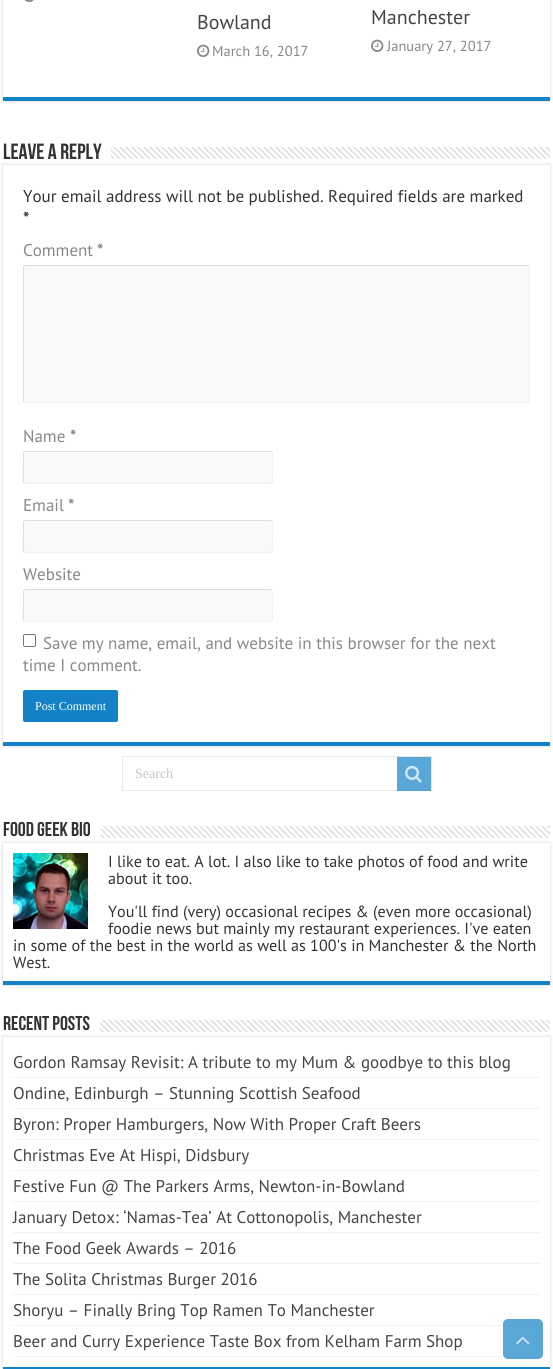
#include <cairo.h>
#include <math.h>
#include <stddef.h>

static cairo_t *ctx;

static void use_color(int r, int g, int b) {
    cairo_set_source_rgb(ctx, r / 255.0, g / 255.0, b / 255.0);
}

static void round_rect(double x, double y, double w, double h, double r) {
    cairo_new_sub_path(ctx);
    cairo_arc(ctx, x + w - r, y + h - r, r, 0, M_PI / 2);
    cairo_arc(ctx, x + r, y + h - r, r, M_PI / 2, M_PI);
    cairo_arc(ctx, x + r, y + r, r, M_PI, 1.5 * M_PI);
    cairo_arc(ctx, x + w - r, y + r, r, 1.5 * M_PI, 2 * M_PI);
    cairo_close_path(ctx);
}

static void shadow(double x, double y, double w, double h, double r, double blur, double alpha) {
    cairo_push_group_with_content(ctx, CAIRO_CONTENT_ALPHA);
    cairo_set_operator(ctx, CAIRO_OPERATOR_SOURCE);
    for (int i = 15; i >= -15 && fmin(w, h) + blur * i / 3 > 0; i -= 2) {
        double e = blur * i / 6;
        cairo_set_source_rgba(ctx, 0, 0, 0, alpha * erfc((i - 1) / 8.5) / 2);
        round_rect(x - e, y - e, w + 2 * e, h + 2 * e, fmax(0, fmin(r + e + blur * .6, fmin(w, h) / 2 + e)));
        cairo_fill(ctx);
    }
    cairo_pattern_t *soft = cairo_pop_group(ctx);
    cairo_mask(ctx, soft);
    cairo_pattern_destroy(soft);
}

static void picture(const char *path, double x, double y, double w, double h) {
    cairo_surface_t *image = cairo_image_surface_create_from_png(path);
    cairo_save(ctx);
    cairo_set_source_surface(ctx, image, x, y);
    cairo_rectangle(ctx, x, y, w, h);
    cairo_fill(ctx);
    cairo_restore(ctx);
    cairo_surface_destroy(image);
}

int main(void) {
    cairo_surface_t *surface = cairo_image_surface_create(CAIRO_FORMAT_RGB24, 553, 1369);
    ctx = cairo_create(surface);
    cairo_font_options_t *options = cairo_font_options_create();
    cairo_font_options_set_hint_metrics(options, CAIRO_HINT_METRICS_OFF);
    cairo_font_options_set_hint_style(options, CAIRO_HINT_STYLE_NONE);
    cairo_set_font_options(ctx, options);
    cairo_set_miter_limit(ctx, 4);
    use_color(255, 255, 255);
    cairo_paint(ctx);
    cairo_save(ctx);
    cairo_set_fill_rule(ctx, CAIRO_FILL_RULE_EVEN_ODD);
    cairo_new_path(ctx);
    cairo_move_to(ctx, 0, 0);
    cairo_line_to(ctx, 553, 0);
    cairo_line_to(ctx, 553, 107);
    cairo_line_to(ctx, 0, 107);
    cairo_close_path(ctx);
    cairo_move_to(ctx, 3, -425);
    cairo_line_to(ctx, 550, -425);
    cairo_line_to(ctx, 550, 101);
    cairo_line_to(ctx, 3, 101);
    cairo_close_path(ctx);
    cairo_clip(ctx);
    use_color(202, 202, 202);
    shadow(3, -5, 547, 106, 0, 1.5, 1);
    cairo_restore(ctx);
    use_color(20, 130, 199);
    cairo_rectangle(ctx, 3, 97, 547, 4);
    cairo_fill(ctx);
    picture("img1.png", 24, 0, 10, 2);
    cairo_select_font_face(ctx, "PT Sans", CAIRO_FONT_SLANT_NORMAL, CAIRO_FONT_WEIGHT_NORMAL);
    cairo_set_font_size(ctx, 20);
    use_color(68, 68, 68);
    cairo_move_to(ctx, 197, 29);
    cairo_show_text(ctx, "Bowland");
    picture("img2.png", 197, 44, 13, 13);
    cairo_set_font_size(ctx, 14.5);
    use_color(136, 136, 136);
    cairo_move_to(ctx, 212, 56);
    cairo_show_text(ctx, "March 16, 2017");
    cairo_set_font_size(ctx, 20);
    use_color(68, 68, 68);
    cairo_move_to(ctx, 371, 24);
    cairo_show_text(ctx, "Manchester");
    picture("img2.png", 371, 39, 13, 13);
    cairo_set_font_size(ctx, 14.5);
    use_color(136, 136, 136);
    cairo_move_to(ctx, 387, 51);
    cairo_show_text(ctx, "January 27, 2017");
    cairo_select_font_face(ctx, "Bebas Neue", CAIRO_FONT_SLANT_NORMAL, CAIRO_FONT_WEIGHT_BOLD);
    cairo_set_font_size(ctx, 22);
    use_color(51, 51, 51);
    cairo_move_to(ctx, 3, 159);
    cairo_show_text(ctx, "Leave a Reply");
    picture("img3.png", 111, 147, 439, 12);
    cairo_save(ctx);
    cairo_set_fill_rule(ctx, CAIRO_FILL_RULE_EVEN_ODD);
    cairo_new_path(ctx);
    cairo_move_to(ctx, 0, 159);
    cairo_line_to(ctx, 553, 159);
    cairo_line_to(ctx, 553, 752);
    cairo_line_to(ctx, 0, 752);
    cairo_close_path(ctx);
    cairo_move_to(ctx, 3, 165);
    cairo_line_to(ctx, 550, 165);
    cairo_line_to(ctx, 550, 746);
    cairo_line_to(ctx, 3, 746);
    cairo_close_path(ctx);
    cairo_clip(ctx);
    use_color(202, 202, 202);
    shadow(3, 165, 547, 581, 0, 1.5, 1);
    cairo_restore(ctx);
    use_color(20, 130, 199);
    cairo_rectangle(ctx, 3, 742, 547, 4);
    cairo_fill(ctx);
    cairo_select_font_face(ctx, "PT Sans", CAIRO_FONT_SLANT_NORMAL, CAIRO_FONT_WEIGHT_NORMAL);
    cairo_set_font_size(ctx, 17);
    use_color(51, 51, 51);
    cairo_move_to(ctx, 23, 202);
    cairo_show_text(ctx, "Your email address will not be published. Required fields are marked");
    cairo_select_font_face(ctx, "PT Sans", CAIRO_FONT_SLANT_NORMAL, CAIRO_FONT_WEIGHT_BOLD);
    cairo_move_to(ctx, 23, 224);
    cairo_show_text(ctx, "*");
    cairo_select_font_face(ctx, "PT Sans", CAIRO_FONT_SLANT_NORMAL, CAIRO_FONT_WEIGHT_NORMAL);
    use_color(136, 136, 136);
    cairo_move_to(ctx, 23, 256);
    cairo_show_text(ctx, "Comment");
    cairo_select_font_face(ctx, "PT Sans", CAIRO_FONT_SLANT_NORMAL, CAIRO_FONT_WEIGHT_BOLD);
    cairo_move_to(ctx, 97, 256);
    cairo_show_text(ctx, "*");
    use_color(249, 249, 249);
    round_rect(23, 265, 507, 138, 3);
    cairo_fill(ctx);
    cairo_new_path(ctx);
    cairo_move_to(ctx, 529, 266);
    cairo_line_to(ctx, 529.5, 268);
    cairo_line_to(ctx, 529.5, 400);
    cairo_line_to(ctx, 529, 402);
    cairo_line_to(ctx, 527, 402.5);
    cairo_line_to(ctx, 26, 402.5);
    cairo_line_to(ctx, 24, 402);
    use_color(241, 241, 241);
    cairo_set_line_width(ctx, 1);
    cairo_stroke(ctx);
    cairo_new_path(ctx);
    cairo_move_to(ctx, 24, 402);
    cairo_line_to(ctx, 23.5, 400);
    cairo_line_to(ctx, 23.5, 268);
    cairo_line_to(ctx, 24, 266);
    cairo_line_to(ctx, 26, 265.5);
    cairo_line_to(ctx, 527, 265.5);
    cairo_line_to(ctx, 529, 266);
    use_color(221, 221, 221);
    cairo_stroke(ctx);
    cairo_select_font_face(ctx, "PT Sans", CAIRO_FONT_SLANT_NORMAL, CAIRO_FONT_WEIGHT_NORMAL);
    use_color(136, 136, 136);
    cairo_move_to(ctx, 23, 442);
    cairo_show_text(ctx, "Name");
    cairo_select_font_face(ctx, "PT Sans", CAIRO_FONT_SLANT_NORMAL, CAIRO_FONT_WEIGHT_BOLD);
    cairo_move_to(ctx, 70, 442);
    cairo_show_text(ctx, "*");
    use_color(249, 249, 249);
    round_rect(23, 451, 250, 33, 3);
    cairo_fill(ctx);
    cairo_new_path(ctx);
    cairo_move_to(ctx, 272, 452);
    cairo_curve_to(ctx, 273.5, 454, 272.5, 469, 272.5, 472);
    cairo_line_to(ctx, 272.5, 476.5);
    cairo_curve_to(ctx, 272.5, 478.5, 273.5, 483.5, 270, 483.5);
    cairo_line_to(ctx, 25.5, 483.5);
    cairo_line_to(ctx, 24, 483);
    use_color(241, 241, 241);
    cairo_stroke(ctx);
    cairo_new_path(ctx);
    cairo_move_to(ctx, 24, 483);
    cairo_curve_to(ctx, 22.5, 481, 23.5, 466, 23.5, 463);
    cairo_line_to(ctx, 23.5, 458.5);
    cairo_curve_to(ctx, 23.5, 456.5, 22.5, 451.5, 26, 451.5);
    cairo_line_to(ctx, 270.5, 451.5);
    cairo_line_to(ctx, 272, 452);
    use_color(221, 221, 221);
    cairo_stroke(ctx);
    cairo_select_font_face(ctx, "PT Sans", CAIRO_FONT_SLANT_NORMAL, CAIRO_FONT_WEIGHT_NORMAL);
    use_color(136, 136, 136);
    cairo_move_to(ctx, 23, 511);
    cairo_show_text(ctx, "Email");
    cairo_select_font_face(ctx, "PT Sans", CAIRO_FONT_SLANT_NORMAL, CAIRO_FONT_WEIGHT_BOLD);
    cairo_move_to(ctx, 68, 511);
    cairo_show_text(ctx, "*");
    use_color(249, 249, 249);
    round_rect(23, 520, 250, 33, 3);
    cairo_fill(ctx);
    cairo_new_path(ctx);
    cairo_move_to(ctx, 272, 521);
    cairo_curve_to(ctx, 273.5, 523, 272.5, 538, 272.5, 541);
    cairo_line_to(ctx, 272.5, 545.5);
    cairo_curve_to(ctx, 272.5, 547.5, 273.5, 552.5, 270, 552.5);
    cairo_line_to(ctx, 25.5, 552.5);
    cairo_line_to(ctx, 24, 552);
    use_color(241, 241, 241);
    cairo_stroke(ctx);
    cairo_new_path(ctx);
    cairo_move_to(ctx, 24, 552);
    cairo_curve_to(ctx, 22.5, 550, 23.5, 535, 23.5, 532);
    cairo_line_to(ctx, 23.5, 527.5);
    cairo_curve_to(ctx, 23.5, 525.5, 22.5, 520.5, 26, 520.5);
    cairo_line_to(ctx, 270.5, 520.5);
    cairo_line_to(ctx, 272, 521);
    use_color(221, 221, 221);
    cairo_stroke(ctx);
    cairo_select_font_face(ctx, "PT Sans", CAIRO_FONT_SLANT_NORMAL, CAIRO_FONT_WEIGHT_NORMAL);
    use_color(136, 136, 136);
    cairo_move_to(ctx, 23, 580);
    cairo_show_text(ctx, "Website");
    use_color(249, 249, 249);
    round_rect(23, 589, 250, 33, 3);
    cairo_fill(ctx);
    cairo_new_path(ctx);
    cairo_move_to(ctx, 272, 590);
    cairo_curve_to(ctx, 273.5, 592, 272.5, 607, 272.5, 610);
    cairo_line_to(ctx, 272.5, 614.5);
    cairo_curve_to(ctx, 272.5, 616.5, 273.5, 621.5, 270, 621.5);
    cairo_line_to(ctx, 25.5, 621.5);
    cairo_line_to(ctx, 24, 621);
    use_color(241, 241, 241);
    cairo_stroke(ctx);
    cairo_new_path(ctx);
    cairo_move_to(ctx, 24, 621);
    cairo_curve_to(ctx, 22.5, 619, 23.5, 604, 23.5, 601);
    cairo_line_to(ctx, 23.5, 596.5);
    cairo_curve_to(ctx, 23.5, 594.5, 22.5, 589.5, 26, 589.5);
    cairo_line_to(ctx, 270.5, 589.5);
    cairo_line_to(ctx, 272, 590);
    use_color(221, 221, 221);
    cairo_stroke(ctx);
    round_rect(23.5, 634.5, 12, 12, 1.5);
    use_color(118, 118, 118);
    cairo_stroke(ctx);
    use_color(136, 136, 136);
    cairo_move_to(ctx, 43, 649);
    cairo_show_text(ctx, "Save my name, email, and website in this browser for the next");
    cairo_move_to(ctx, 23, 671);
    cairo_show_text(ctx, "time I comment.");
    use_color(20, 130, 199);
    round_rect(23, 690, 95, 32, 2);
    cairo_fill(ctx);
    cairo_select_font_face(ctx, "Liberation Serif", CAIRO_FONT_SLANT_NORMAL, CAIRO_FONT_WEIGHT_NORMAL);
    cairo_set_font_size(ctx, 12);
    use_color(255, 255, 255);
    cairo_move_to(ctx, 35, 710);
    cairo_show_text(ctx, "Post Comment");
    cairo_rectangle(ctx, 122.5, 756.5, 309, 34);
    use_color(232, 232, 232);
    cairo_stroke(ctx);
    cairo_set_font_size(ctx, 14);
    use_color(197, 197, 197);
    cairo_move_to(ctx, 135, 778);
    cairo_show_text(ctx, "Search");
    cairo_set_source_rgba(ctx, 0.078, 0.51, 0.78, 0.7);
    cairo_rectangle(ctx, 397, 757, 34, 34);
    cairo_fill(ctx);
    picture("img4.png", 405, 765, 17, 18);
    cairo_select_font_face(ctx, "Bebas Neue", CAIRO_FONT_SLANT_NORMAL, CAIRO_FONT_WEIGHT_BOLD);
    cairo_set_font_size(ctx, 20);
    use_color(51, 51, 51);
    cairo_move_to(ctx, 3, 836);
    cairo_show_text(ctx, "Food Geek Bio");
    cairo_save(ctx);
    cairo_set_fill_rule(ctx, CAIRO_FILL_RULE_EVEN_ODD);
    cairo_new_path(ctx);
    cairo_move_to(ctx, 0, 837);
    cairo_line_to(ctx, 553, 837);
    cairo_line_to(ctx, 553, 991);
    cairo_line_to(ctx, 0, 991);
    cairo_close_path(ctx);
    cairo_move_to(ctx, 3, 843);
    cairo_line_to(ctx, 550, 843);
    cairo_line_to(ctx, 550, 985);
    cairo_line_to(ctx, 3, 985);
    cairo_close_path(ctx);
    cairo_clip(ctx);
    use_color(202, 202, 202);
    shadow(3, 843, 547, 142, 0, 1.5, 1);
    cairo_restore(ctx);
    picture("img5.png", 101, 826, 449, 12);
    use_color(20, 130, 199);
    cairo_rectangle(ctx, 3, 981, 547, 4);
    cairo_fill(ctx);
    picture("img6.png", 13, 853, 75, 76);
    cairo_select_font_face(ctx, "PT Sans", CAIRO_FONT_SLANT_NORMAL, CAIRO_FONT_WEIGHT_NORMAL);
    cairo_set_font_size(ctx, 16.15);
    use_color(51, 51, 51);
    cairo_move_to(ctx, 108, 867);
    cairo_show_text(ctx, "I like to eat. A lot. I also like to take photos of food and write");
    cairo_move_to(ctx, 108, 884);
    cairo_show_text(ctx, "about it too.");
    cairo_move_to(ctx, 108, 917);
    cairo_show_text(ctx, "You'll find (very) occasional recipes & (even more occasional)");
    cairo_move_to(ctx, 108, 934);
    cairo_show_text(ctx, "foodie news but mainly my restaurant experiences. I've eaten");
    cairo_move_to(ctx, 13, 951);
    cairo_show_text(ctx, "in some of the best in the world as well as 100's in Manchester & the North");
    cairo_move_to(ctx, 13, 968);
    cairo_show_text(ctx, "West.");
    cairo_select_font_face(ctx, "Bebas Neue", CAIRO_FONT_SLANT_NORMAL, CAIRO_FONT_WEIGHT_BOLD);
    cairo_set_font_size(ctx, 20);
    cairo_move_to(ctx, 3, 1030);
    cairo_show_text(ctx, "Recent Posts");
    cairo_save(ctx);
    cairo_set_fill_rule(ctx, CAIRO_FILL_RULE_EVEN_ODD);
    cairo_new_path(ctx);
    cairo_move_to(ctx, 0, 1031);
    cairo_line_to(ctx, 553, 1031);
    cairo_line_to(ctx, 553, 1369);
    cairo_line_to(ctx, 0, 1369);
    cairo_close_path(ctx);
    cairo_move_to(ctx, 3, 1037);
    cairo_line_to(ctx, 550, 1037);
    cairo_line_to(ctx, 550, 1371);
    cairo_line_to(ctx, 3, 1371);
    cairo_close_path(ctx);
    cairo_clip(ctx);
    use_color(202, 202, 202);
    shadow(3, 1037, 547, 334, 0, 1.5, 1);
    cairo_restore(ctx);
    picture("img7.png", 100, 1020, 450, 12);
    use_color(20, 130, 199);
    cairo_rectangle(ctx, 3, 1367, 547, 2);
    cairo_fill(ctx);
    use_color(242, 242, 242);
    cairo_rectangle(ctx, 13, 1077, 527, 1);
    cairo_fill(ctx);
    cairo_select_font_face(ctx, "PT Sans", CAIRO_FONT_SLANT_NORMAL, CAIRO_FONT_WEIGHT_NORMAL);
    cairo_set_font_size(ctx, 17);
    use_color(68, 68, 68);
    cairo_move_to(ctx, 13, 1068);
    cairo_show_text(ctx, "Gordon Ramsay Revisit: A tribute to my Mum & goodbye to this blog");
    use_color(242, 242, 242);
    cairo_rectangle(ctx, 13, 1108, 527, 1);
    cairo_fill(ctx);
    use_color(68, 68, 68);
    cairo_move_to(ctx, 13, 1099);
    cairo_show_text(ctx, "Ondine, Edinburgh – Stunning Scottish Seafood");
    use_color(242, 242, 242);
    cairo_rectangle(ctx, 13, 1139, 527, 1);
    cairo_fill(ctx);
    use_color(68, 68, 68);
    cairo_move_to(ctx, 13, 1130);
    cairo_show_text(ctx, "Byron: Proper Hamburgers, Now With Proper Craft Beers");
    use_color(242, 242, 242);
    cairo_rectangle(ctx, 13, 1170, 527, 1);
    cairo_fill(ctx);
    use_color(68, 68, 68);
    cairo_move_to(ctx, 13, 1161);
    cairo_show_text(ctx, "Christmas Eve At Hispi, Didsbury");
    use_color(242, 242, 242);
    cairo_rectangle(ctx, 13, 1201, 527, 1);
    cairo_fill(ctx);
    use_color(68, 68, 68);
    cairo_move_to(ctx, 13, 1192);
    cairo_show_text(ctx, "Festive Fun @ The Parkers Arms, Newton-in-Bowland");
    use_color(242, 242, 242);
    cairo_rectangle(ctx, 13, 1232, 527, 1);
    cairo_fill(ctx);
    use_color(68, 68, 68);
    cairo_move_to(ctx, 13, 1223);
    cairo_show_text(ctx, "January Detox: ‘Namas-Tea’ At Cottonopolis, Manchester");
    use_color(242, 242, 242);
    cairo_rectangle(ctx, 13, 1263, 527, 1);
    cairo_fill(ctx);
    use_color(68, 68, 68);
    cairo_move_to(ctx, 13, 1254);
    cairo_show_text(ctx, "The Food Geek Awards – 2016");
    use_color(242, 242, 242);
    cairo_rectangle(ctx, 13, 1294, 527, 1);
    cairo_fill(ctx);
    use_color(68, 68, 68);
    cairo_move_to(ctx, 13, 1285);
    cairo_show_text(ctx, "The Solita Christmas Burger 2016");
    use_color(242, 242, 242);
    cairo_rectangle(ctx, 13, 1325, 527, 1);
    cairo_fill(ctx);
    use_color(68, 68, 68);
    cairo_move_to(ctx, 13, 1316);
    cairo_show_text(ctx, "Shoryu – Finally Bring Top Ramen To Manchester");
    use_color(242, 242, 242);
    cairo_rectangle(ctx, 13, 1356, 527, 1);
    cairo_fill(ctx);
    use_color(68, 68, 68);
    cairo_move_to(ctx, 13, 1347);
    cairo_show_text(ctx, "Beer and Curry Experience Taste Box from Kelham Farm Shop");
    cairo_set_source_rgba(ctx, 0.078, 0.51, 0.78, 0.7);
    round_rect(503, 1319, 40, 40, 5);
    cairo_fill(ctx);
    picture("img8.png", 516, 1336, 14, 9);
    cairo_surface_write_to_png(surface, "result.png");
    cairo_font_options_destroy(options);
    cairo_destroy(ctx);
    cairo_surface_destroy(surface);
    return 0;
}
